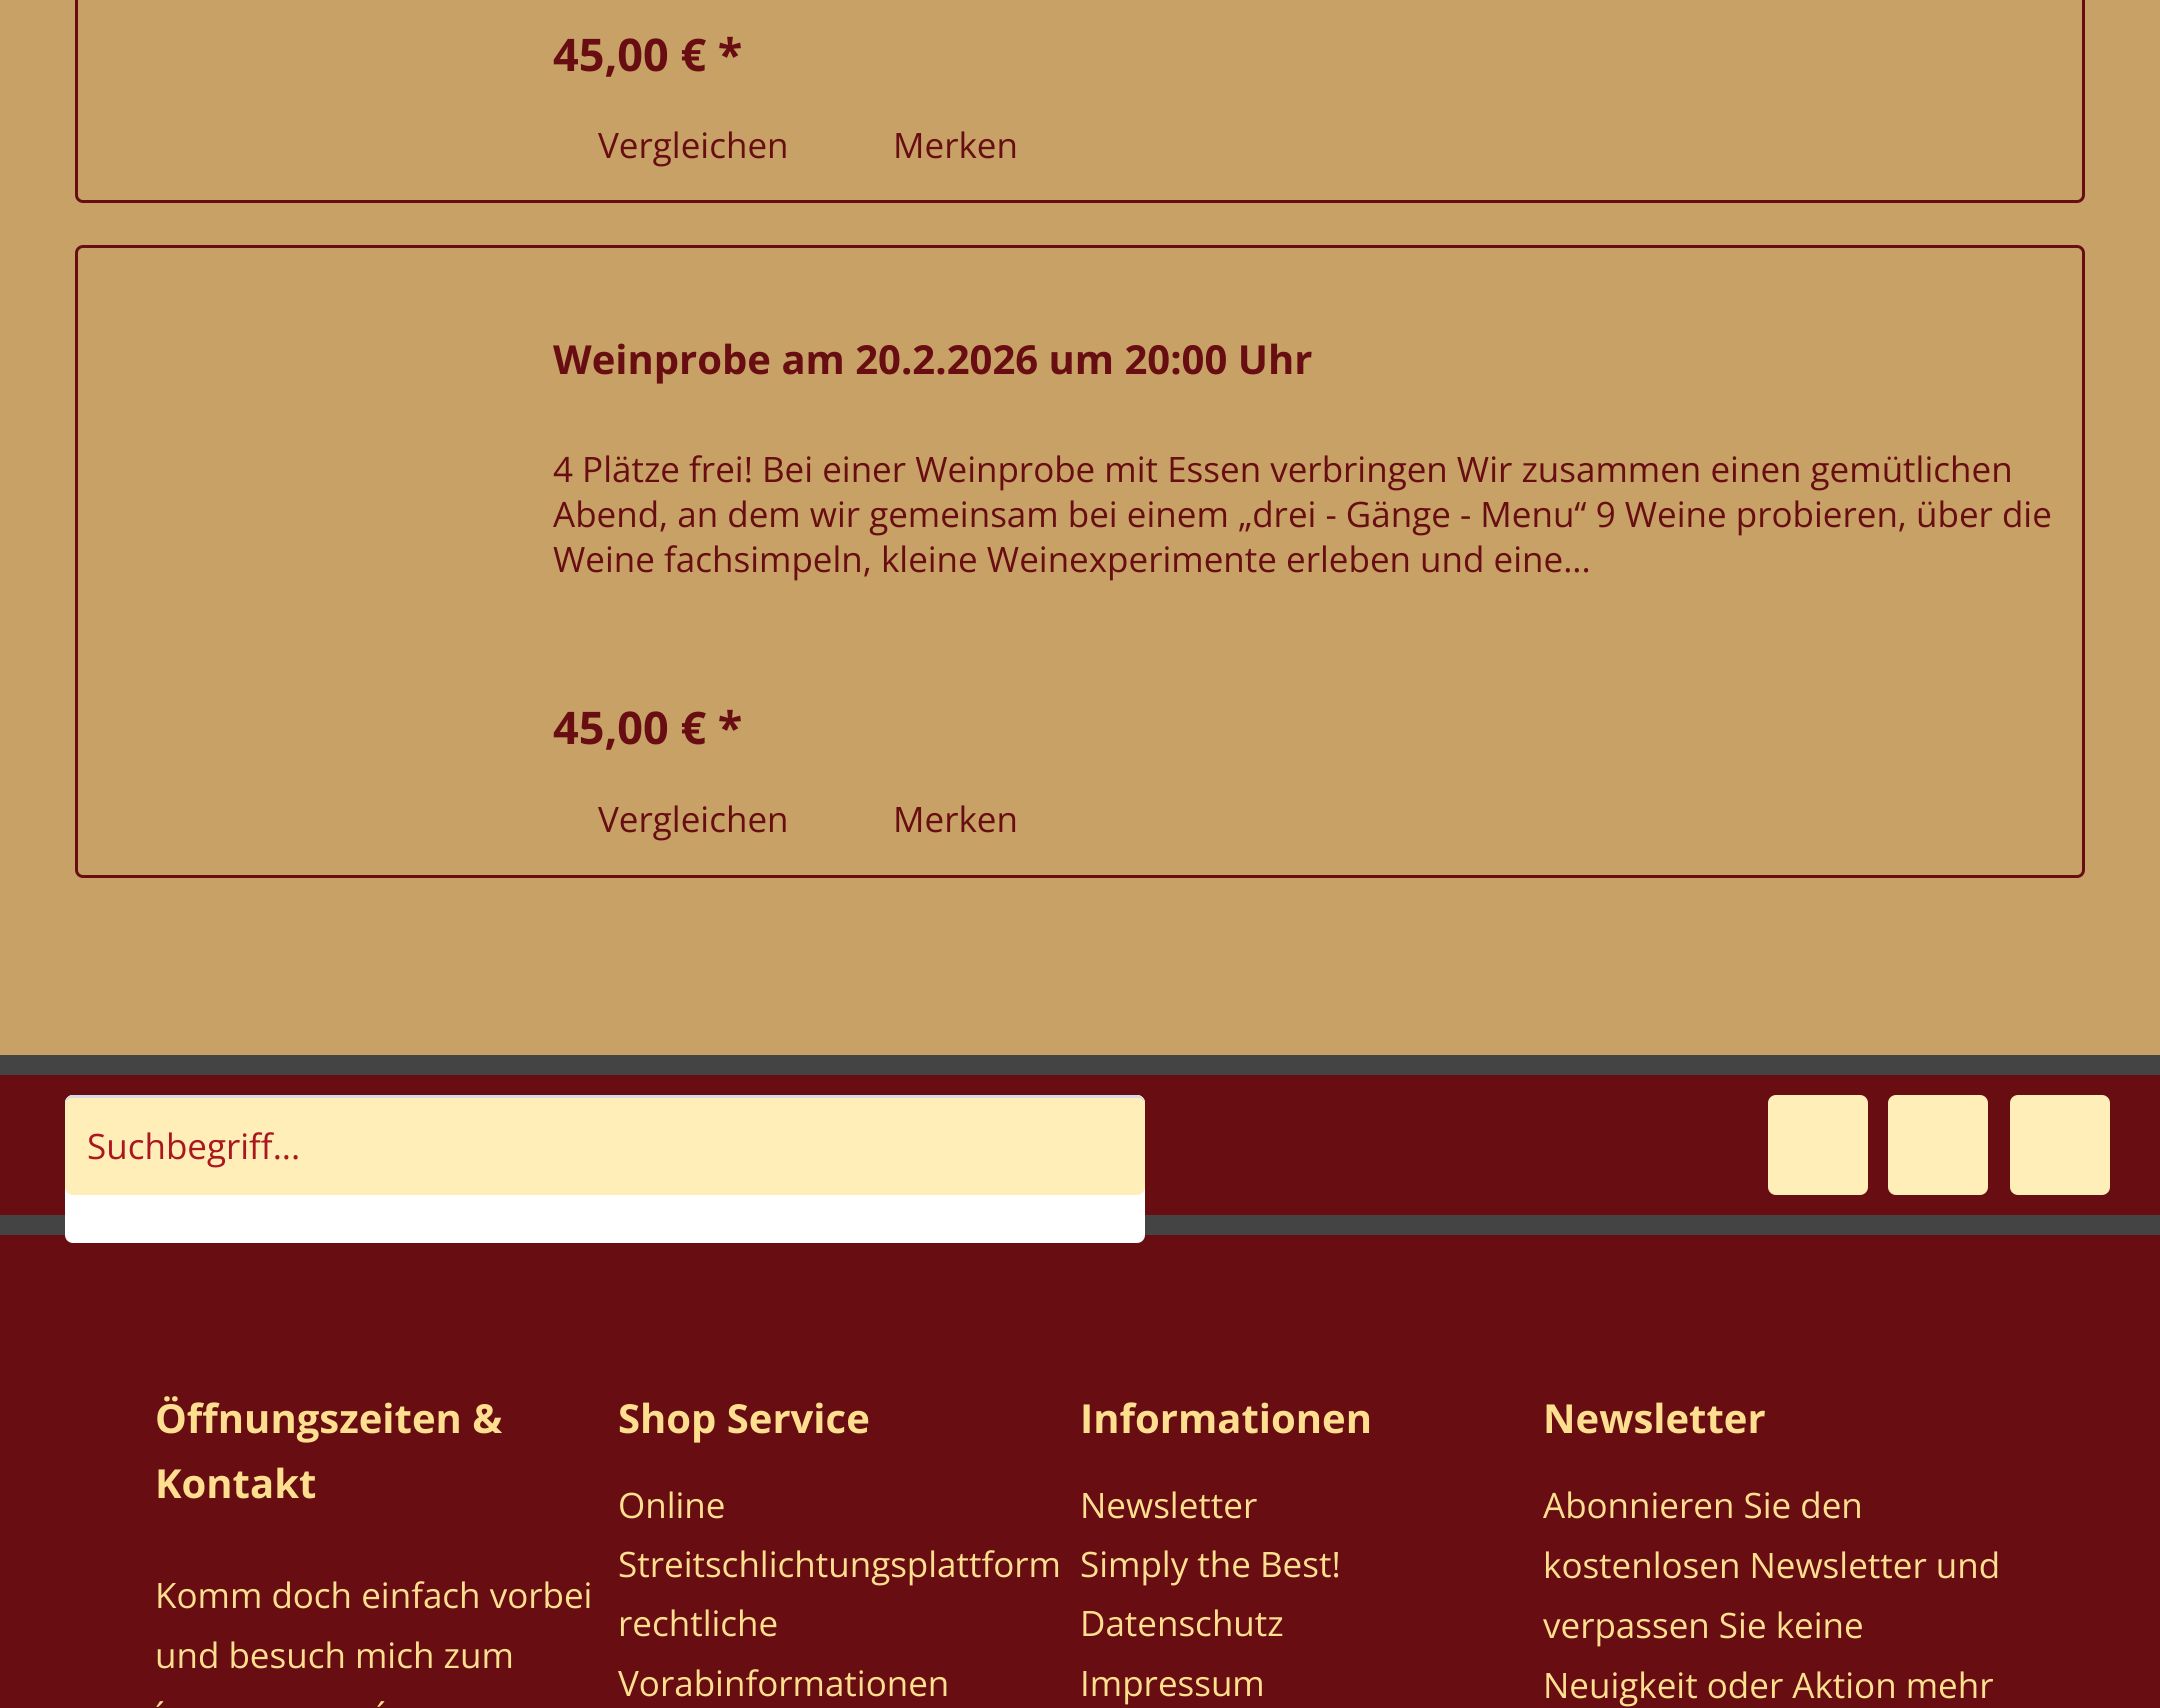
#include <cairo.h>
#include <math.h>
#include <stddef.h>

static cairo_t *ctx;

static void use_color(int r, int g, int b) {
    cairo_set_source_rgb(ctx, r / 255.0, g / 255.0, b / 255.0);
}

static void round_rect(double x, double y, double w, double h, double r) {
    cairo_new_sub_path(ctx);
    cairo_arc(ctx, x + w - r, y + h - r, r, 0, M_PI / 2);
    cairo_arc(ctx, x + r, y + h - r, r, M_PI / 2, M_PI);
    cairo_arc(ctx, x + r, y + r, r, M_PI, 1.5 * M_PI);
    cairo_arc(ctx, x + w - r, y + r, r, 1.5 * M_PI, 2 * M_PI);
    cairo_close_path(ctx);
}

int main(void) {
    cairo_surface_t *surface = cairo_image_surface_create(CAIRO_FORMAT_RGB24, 2160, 1708);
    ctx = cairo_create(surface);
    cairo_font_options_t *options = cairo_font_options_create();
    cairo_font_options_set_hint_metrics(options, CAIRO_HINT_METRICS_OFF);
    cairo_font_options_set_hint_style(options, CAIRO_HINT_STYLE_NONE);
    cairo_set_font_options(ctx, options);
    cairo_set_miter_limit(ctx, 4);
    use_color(69, 68, 68);
    cairo_paint(ctx);
    use_color(199, 161, 102);
    cairo_rectangle(ctx, 0, 0, 2160, 1055);
    cairo_fill(ctx);
    round_rect(76.5, -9.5, 2007, 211, 6.5);
    use_color(104, 14, 18);
    cairo_set_line_width(ctx, 3);
    cairo_stroke(ctx);
    cairo_select_font_face(ctx, "Open Sans", CAIRO_FONT_SLANT_NORMAL, CAIRO_FONT_WEIGHT_BOLD);
    cairo_set_font_size(ctx, 45);
    cairo_move_to(ctx, 553, 71);
    cairo_show_text(ctx, "45,00 € *");
    cairo_select_font_face(ctx, "Open Sans", CAIRO_FONT_SLANT_NORMAL, CAIRO_FONT_WEIGHT_NORMAL);
    cairo_set_font_size(ctx, 35);
    cairo_move_to(ctx, 598, 158);
    cairo_show_text(ctx, "Vergleichen");
    cairo_move_to(ctx, 893, 158);
    cairo_show_text(ctx, "Merken");
    round_rect(76.5, 246.5, 2007, 630, 6.5);
    cairo_stroke(ctx);
    cairo_select_font_face(ctx, "Open Sans", CAIRO_FONT_SLANT_NORMAL, CAIRO_FONT_WEIGHT_BOLD);
    cairo_set_font_size(ctx, 40);
    cairo_move_to(ctx, 553, 374);
    cairo_show_text(ctx, "Weinprobe am 20.2.2026 um 20:00 Uhr");
    cairo_select_font_face(ctx, "Open Sans", CAIRO_FONT_SLANT_NORMAL, CAIRO_FONT_WEIGHT_NORMAL);
    cairo_set_font_size(ctx, 35);
    cairo_move_to(ctx, 553, 482);
    cairo_show_text(ctx, "4 Plätze frei! Bei einer Weinprobe mit Essen verbringen Wir zusammen einen gemütlichen");
    cairo_move_to(ctx, 553, 527);
    cairo_show_text(ctx, "Abend, an dem wir gemeinsam bei einem „drei - Gänge - Menu“ 9 Weine probieren, über die");
    cairo_move_to(ctx, 553, 572);
    cairo_show_text(ctx, "Weine fachsimpeln, kleine Weinexperimente erleben und eine...");
    cairo_select_font_face(ctx, "Open Sans", CAIRO_FONT_SLANT_NORMAL, CAIRO_FONT_WEIGHT_BOLD);
    cairo_set_font_size(ctx, 45);
    cairo_move_to(ctx, 553, 744);
    cairo_show_text(ctx, "45,00 € *");
    cairo_select_font_face(ctx, "Open Sans", CAIRO_FONT_SLANT_NORMAL, CAIRO_FONT_WEIGHT_NORMAL);
    cairo_set_font_size(ctx, 35);
    cairo_move_to(ctx, 598, 832);
    cairo_show_text(ctx, "Vergleichen");
    cairo_move_to(ctx, 893, 832);
    cairo_show_text(ctx, "Merken");
    cairo_rectangle(ctx, 0, 1075, 2160, 140);
    cairo_fill(ctx);
    cairo_rectangle(ctx, 0, 1235, 2160, 473);
    cairo_fill(ctx);
    use_color(255, 255, 255);
    round_rect(65, 1095, 1080, 148, 8);
    cairo_fill(ctx);
    use_color(255, 238, 184);
    round_rect(65, 1095, 1080, 100, 8);
    cairo_fill(ctx);
    use_color(218, 218, 229);
    cairo_new_path(ctx);
    cairo_move_to(ctx, 72, 1098);
    cairo_line_to(ctx, 1138, 1098);
    cairo_curve_to(ctx, 1142, 1098, 1145, 1101, 1145, 1105);
    cairo_line_to(ctx, 1145, 1103);
    cairo_curve_to(ctx, 1145, 1099, 1141, 1095, 1137, 1095);
    cairo_line_to(ctx, 73, 1095);
    cairo_curve_to(ctx, 69, 1095, 65, 1099, 65, 1103);
    cairo_line_to(ctx, 65, 1105);
    cairo_curve_to(ctx, 65, 1101, 68, 1098, 72, 1098);
    cairo_close_path(ctx);
    cairo_fill(ctx);
    use_color(171, 23, 30);
    cairo_move_to(ctx, 87, 1159);
    cairo_show_text(ctx, "Suchbegriff...");
    use_color(255, 238, 184);
    round_rect(1768, 1095, 100, 100, 8);
    cairo_fill(ctx);
    round_rect(1888, 1095, 100, 100, 8);
    cairo_fill(ctx);
    round_rect(2010, 1095, 100, 100, 8);
    cairo_fill(ctx);
    cairo_select_font_face(ctx, "Open Sans", CAIRO_FONT_SLANT_NORMAL, CAIRO_FONT_WEIGHT_BOLD);
    cairo_set_font_size(ctx, 40);
    use_color(254, 222, 143);
    cairo_move_to(ctx, 155, 1433);
    cairo_show_text(ctx, "Öffnungszeiten &");
    cairo_move_to(ctx, 155, 1498);
    cairo_show_text(ctx, "Kontakt");
    cairo_select_font_face(ctx, "Open Sans", CAIRO_FONT_SLANT_NORMAL, CAIRO_FONT_WEIGHT_NORMAL);
    cairo_set_font_size(ctx, 35);
    cairo_move_to(ctx, 155, 1608);
    cairo_show_text(ctx, "Komm doch einfach vorbei");
    cairo_move_to(ctx, 155, 1668);
    cairo_show_text(ctx, "und besuch mich zum");
    cairo_move_to(ctx, 155, 1728);
    cairo_show_text(ctx, "´");
    cairo_move_to(ctx, 376, 1728);
    cairo_show_text(ctx, "´");
    cairo_select_font_face(ctx, "Open Sans", CAIRO_FONT_SLANT_NORMAL, CAIRO_FONT_WEIGHT_BOLD);
    cairo_set_font_size(ctx, 40);
    cairo_move_to(ctx, 618, 1433);
    cairo_show_text(ctx, "Shop Service");
    cairo_select_font_face(ctx, "Open Sans", CAIRO_FONT_SLANT_NORMAL, CAIRO_FONT_WEIGHT_NORMAL);
    cairo_set_font_size(ctx, 35);
    cairo_move_to(ctx, 618, 1518);
    cairo_show_text(ctx, "Online");
    cairo_move_to(ctx, 618, 1577);
    cairo_show_text(ctx, "Streitschlichtungsplattform");
    cairo_move_to(ctx, 618, 1636);
    cairo_show_text(ctx, "rechtliche");
    cairo_move_to(ctx, 618, 1696);
    cairo_show_text(ctx, "Vorabinformationen");
    cairo_select_font_face(ctx, "Open Sans", CAIRO_FONT_SLANT_NORMAL, CAIRO_FONT_WEIGHT_BOLD);
    cairo_set_font_size(ctx, 40);
    cairo_move_to(ctx, 1080, 1433);
    cairo_show_text(ctx, "Informationen");
    cairo_select_font_face(ctx, "Open Sans", CAIRO_FONT_SLANT_NORMAL, CAIRO_FONT_WEIGHT_NORMAL);
    cairo_set_font_size(ctx, 35);
    cairo_move_to(ctx, 1080, 1518);
    cairo_show_text(ctx, "Newsletter");
    cairo_move_to(ctx, 1080, 1577);
    cairo_show_text(ctx, "Simply the Best!");
    cairo_move_to(ctx, 1080, 1636);
    cairo_show_text(ctx, "Datenschutz");
    cairo_move_to(ctx, 1080, 1696);
    cairo_show_text(ctx, "Impressum");
    cairo_select_font_face(ctx, "Open Sans", CAIRO_FONT_SLANT_NORMAL, CAIRO_FONT_WEIGHT_BOLD);
    cairo_set_font_size(ctx, 40);
    cairo_move_to(ctx, 1543, 1433);
    cairo_show_text(ctx, "Newsletter");
    cairo_select_font_face(ctx, "Open Sans", CAIRO_FONT_SLANT_NORMAL, CAIRO_FONT_WEIGHT_NORMAL);
    cairo_set_font_size(ctx, 35);
    cairo_move_to(ctx, 1543, 1518);
    cairo_show_text(ctx, "Abonnieren Sie den");
    cairo_move_to(ctx, 1543, 1578);
    cairo_show_text(ctx, "kostenlosen Newsletter und");
    cairo_move_to(ctx, 1543, 1638);
    cairo_show_text(ctx, "verpassen Sie keine");
    cairo_move_to(ctx, 1543, 1698);
    cairo_show_text(ctx, "Neuigkeit oder Aktion mehr");
    cairo_surface_write_to_png(surface, "result.png");
    cairo_font_options_destroy(options);
    cairo_destroy(ctx);
    cairo_surface_destroy(surface);
    return 0;
}
